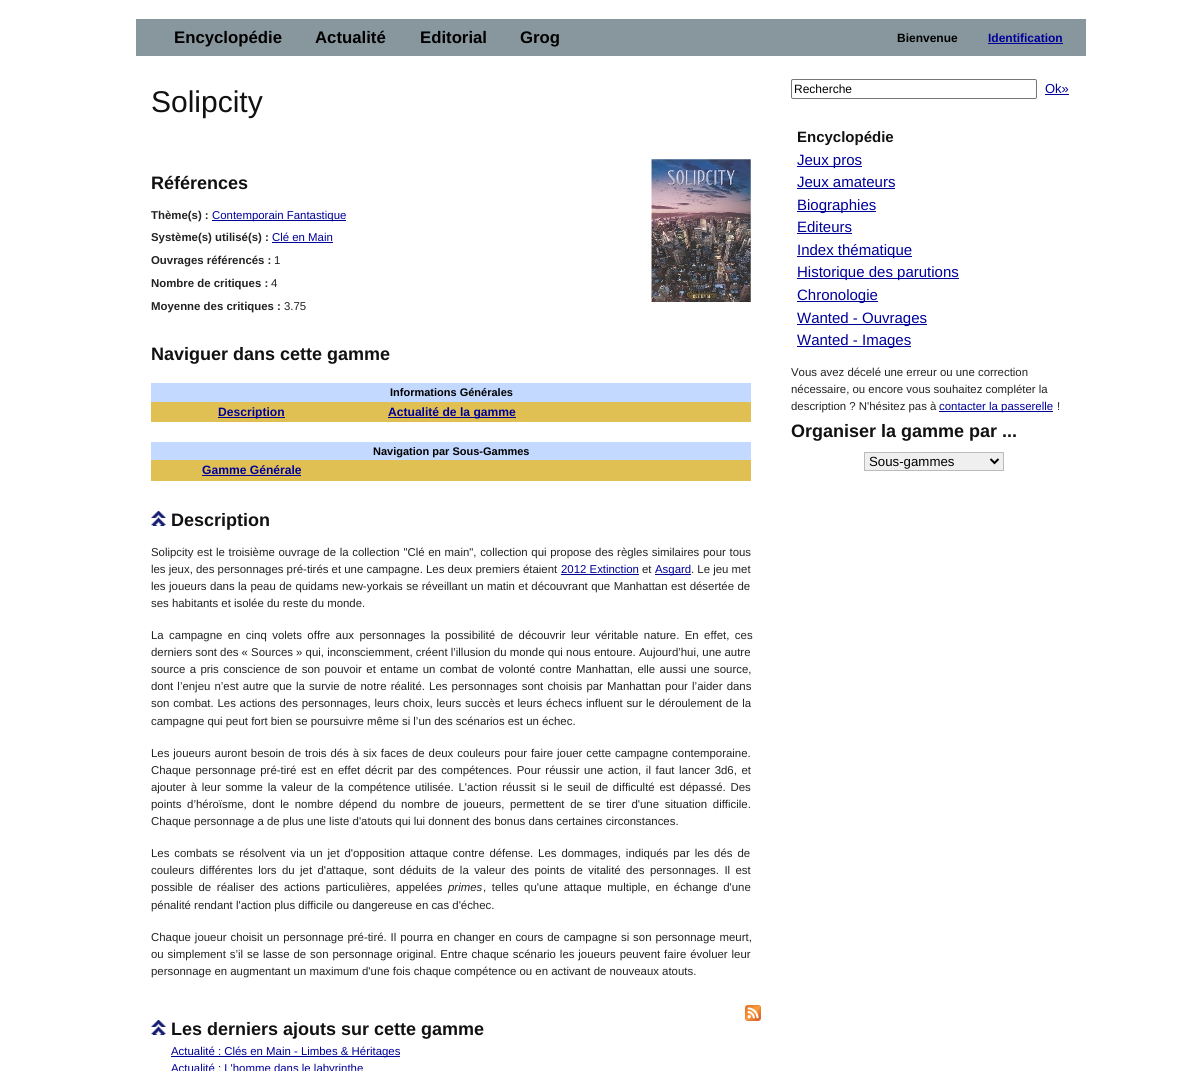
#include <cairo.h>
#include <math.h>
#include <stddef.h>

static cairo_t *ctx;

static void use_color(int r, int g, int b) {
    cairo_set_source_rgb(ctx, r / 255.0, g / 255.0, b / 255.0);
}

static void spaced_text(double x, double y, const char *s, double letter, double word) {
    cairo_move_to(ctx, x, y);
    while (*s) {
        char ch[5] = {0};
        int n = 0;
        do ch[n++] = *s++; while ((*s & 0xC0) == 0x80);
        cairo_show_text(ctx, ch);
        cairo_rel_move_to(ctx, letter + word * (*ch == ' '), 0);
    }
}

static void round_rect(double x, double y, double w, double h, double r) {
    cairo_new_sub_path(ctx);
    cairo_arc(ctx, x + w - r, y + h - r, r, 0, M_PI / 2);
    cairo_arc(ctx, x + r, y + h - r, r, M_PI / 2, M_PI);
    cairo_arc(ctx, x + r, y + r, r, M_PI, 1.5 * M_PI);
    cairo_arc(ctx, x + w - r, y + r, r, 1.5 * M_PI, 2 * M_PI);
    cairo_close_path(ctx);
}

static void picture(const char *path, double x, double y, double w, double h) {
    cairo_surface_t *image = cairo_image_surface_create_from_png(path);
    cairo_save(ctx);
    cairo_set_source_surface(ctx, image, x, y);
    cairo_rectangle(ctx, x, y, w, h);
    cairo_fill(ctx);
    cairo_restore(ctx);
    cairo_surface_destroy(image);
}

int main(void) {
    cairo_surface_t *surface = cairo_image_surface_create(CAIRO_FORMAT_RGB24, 1204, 1071);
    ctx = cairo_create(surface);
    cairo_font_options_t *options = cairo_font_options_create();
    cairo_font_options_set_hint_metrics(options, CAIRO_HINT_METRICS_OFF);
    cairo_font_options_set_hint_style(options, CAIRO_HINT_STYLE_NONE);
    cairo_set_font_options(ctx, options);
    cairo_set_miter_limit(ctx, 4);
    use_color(255, 255, 255);
    cairo_paint(ctx);
    use_color(136, 151, 157);
    cairo_rectangle(ctx, 136, 19, 950, 37);
    cairo_fill(ctx);
    cairo_select_font_face(ctx, "Liberation Sans", CAIRO_FONT_SLANT_NORMAL, CAIRO_FONT_WEIGHT_BOLD);
    cairo_set_font_size(ctx, 16.75);
    use_color(0, 0, 0);
    cairo_move_to(ctx, 174, 43);
    cairo_show_text(ctx, "Encyclopédie");
    cairo_move_to(ctx, 315, 43);
    cairo_show_text(ctx, "Actualité");
    cairo_move_to(ctx, 420, 43);
    cairo_show_text(ctx, "Editorial");
    cairo_move_to(ctx, 520, 43);
    cairo_show_text(ctx, "Grog");
    cairo_set_font_size(ctx, 12);
    cairo_move_to(ctx, 897, 42);
    cairo_show_text(ctx, "Bienvenue");
    use_color(0, 0, 153);
    cairo_move_to(ctx, 988, 42);
    cairo_show_text(ctx, "Identification");
    cairo_rectangle(ctx, 988, 43, 75, 1);
    cairo_fill(ctx);
    cairo_select_font_face(ctx, "Liberation Sans", CAIRO_FONT_SLANT_NORMAL, CAIRO_FONT_WEIGHT_NORMAL);
    cairo_set_font_size(ctx, 30);
    use_color(17, 17, 17);
    cairo_move_to(ctx, 151, 112);
    cairo_show_text(ctx, "Solipcity");
    cairo_select_font_face(ctx, "Liberation Sans", CAIRO_FONT_SLANT_NORMAL, CAIRO_FONT_WEIGHT_BOLD);
    cairo_set_font_size(ctx, 18);
    cairo_move_to(ctx, 151, 189);
    cairo_show_text(ctx, "Références");
    picture("img1.png", 651, 159, 100, 143);
    cairo_set_font_size(ctx, 11.4);
    use_color(34, 34, 34);
    cairo_move_to(ctx, 151, 219);
    cairo_show_text(ctx, "Thème(s) :");
    use_color(0, 0, 153);
    cairo_rectangle(ctx, 212, 220, 134, 1);
    cairo_fill(ctx);
    cairo_select_font_face(ctx, "Liberation Sans", CAIRO_FONT_SLANT_NORMAL, CAIRO_FONT_WEIGHT_NORMAL);
    cairo_move_to(ctx, 212, 219);
    cairo_show_text(ctx, "Contemporain Fantastique");
    cairo_select_font_face(ctx, "Liberation Sans", CAIRO_FONT_SLANT_NORMAL, CAIRO_FONT_WEIGHT_BOLD);
    use_color(34, 34, 34);
    cairo_move_to(ctx, 151, 241);
    cairo_show_text(ctx, "Système(s) utilisé(s) :");
    cairo_select_font_face(ctx, "Liberation Sans", CAIRO_FONT_SLANT_NORMAL, CAIRO_FONT_WEIGHT_NORMAL);
    use_color(0, 0, 153);
    cairo_move_to(ctx, 272, 241);
    cairo_show_text(ctx, "Clé en Main");
    cairo_rectangle(ctx, 272, 242, 61, 1);
    cairo_fill(ctx);
    cairo_select_font_face(ctx, "Liberation Sans", CAIRO_FONT_SLANT_NORMAL, CAIRO_FONT_WEIGHT_BOLD);
    use_color(34, 34, 34);
    cairo_move_to(ctx, 151, 264);
    cairo_show_text(ctx, "Ouvrages référencés :");
    cairo_select_font_face(ctx, "Liberation Sans", CAIRO_FONT_SLANT_NORMAL, CAIRO_FONT_WEIGHT_NORMAL);
    cairo_move_to(ctx, 274, 264);
    cairo_show_text(ctx, "1");
    cairo_select_font_face(ctx, "Liberation Sans", CAIRO_FONT_SLANT_NORMAL, CAIRO_FONT_WEIGHT_BOLD);
    cairo_move_to(ctx, 151, 287);
    cairo_show_text(ctx, "Nombre de critiques :");
    cairo_select_font_face(ctx, "Liberation Sans", CAIRO_FONT_SLANT_NORMAL, CAIRO_FONT_WEIGHT_NORMAL);
    cairo_move_to(ctx, 271, 287);
    cairo_show_text(ctx, "4");
    cairo_select_font_face(ctx, "Liberation Sans", CAIRO_FONT_SLANT_NORMAL, CAIRO_FONT_WEIGHT_BOLD);
    cairo_move_to(ctx, 151, 310);
    cairo_show_text(ctx, "Moyenne des critiques :");
    cairo_select_font_face(ctx, "Liberation Sans", CAIRO_FONT_SLANT_NORMAL, CAIRO_FONT_WEIGHT_NORMAL);
    cairo_move_to(ctx, 284, 310);
    cairo_show_text(ctx, "3.75");
    cairo_select_font_face(ctx, "Liberation Sans", CAIRO_FONT_SLANT_NORMAL, CAIRO_FONT_WEIGHT_BOLD);
    cairo_set_font_size(ctx, 18);
    use_color(17, 17, 17);
    cairo_move_to(ctx, 151, 360);
    cairo_show_text(ctx, "Naviguer dans cette gamme");
    use_color(224, 192, 82);
    cairo_rectangle(ctx, 151, 402, 600, 20);
    cairo_fill(ctx);
    use_color(195, 217, 255);
    cairo_rectangle(ctx, 151, 383, 600, 19);
    cairo_fill(ctx);
    cairo_set_font_size(ctx, 11);
    use_color(0, 0, 0);
    cairo_move_to(ctx, 390, 396);
    cairo_show_text(ctx, "Informations Générales");
    use_color(0, 0, 153);
    cairo_rectangle(ctx, 218, 417, 67, 1);
    cairo_fill(ctx);
    cairo_set_font_size(ctx, 12.1);
    cairo_move_to(ctx, 218, 416);
    cairo_show_text(ctx, "Description");
    cairo_rectangle(ctx, 388, 417, 128, 1);
    cairo_fill(ctx);
    cairo_move_to(ctx, 388, 416);
    cairo_show_text(ctx, "Actualité de la gamme");
    use_color(224, 192, 82);
    cairo_rectangle(ctx, 151, 460, 600, 21);
    cairo_fill(ctx);
    use_color(195, 217, 255);
    cairo_rectangle(ctx, 151, 442, 600, 18);
    cairo_fill(ctx);
    cairo_set_font_size(ctx, 11);
    use_color(0, 0, 0);
    cairo_move_to(ctx, 373, 455);
    cairo_show_text(ctx, "Navigation par Sous-Gammes");
    cairo_set_font_size(ctx, 12.1);
    use_color(0, 0, 153);
    cairo_move_to(ctx, 202, 474);
    cairo_show_text(ctx, "Gamme Générale");
    cairo_rectangle(ctx, 202, 475, 99, 1);
    cairo_fill(ctx);
    picture("img2.png", 151, 511, 15, 15);
    cairo_set_font_size(ctx, 18);
    use_color(17, 17, 17);
    cairo_move_to(ctx, 171, 526);
    cairo_show_text(ctx, "Description");
    cairo_select_font_face(ctx, "Liberation Sans", CAIRO_FONT_SLANT_NORMAL, CAIRO_FONT_WEIGHT_NORMAL);
    cairo_set_font_size(ctx, 11.4);
    use_color(34, 34, 34);
    spaced_text(151, 556, "Solipcity est le troisième ouvrage de la collection \"Clé en main\", collection qui propose des règles similaires pour tous", 0, 0.5);
    cairo_move_to(ctx, 151, 573);
    cairo_show_text(ctx, "les jeux, des personnages pré-tirés et une campagne. Les deux premiers étaient");
    use_color(0, 0, 153);
    cairo_move_to(ctx, 561, 573);
    cairo_show_text(ctx, "2012 Extinction");
    cairo_rectangle(ctx, 561, 574, 78, 1);
    cairo_fill(ctx);
    use_color(34, 34, 34);
    cairo_move_to(ctx, 642, 573);
    cairo_show_text(ctx, "et");
    use_color(0, 0, 153);
    cairo_rectangle(ctx, 655, 574, 36, 1);
    cairo_fill(ctx);
    cairo_move_to(ctx, 655, 573);
    cairo_show_text(ctx, "Asgard");
    use_color(34, 34, 34);
    cairo_move_to(ctx, 691, 573);
    cairo_show_text(ctx, ". Le jeu met");
    spaced_text(151, 590, "les joueurs dans la peau de quidams new-yorkais se réveillant un matin et découvrant que Manhattan est désertée de", 0, 0.3);
    cairo_move_to(ctx, 151, 607);
    cairo_show_text(ctx, "ses habitants et isolée du reste du monde.");
    spaced_text(151, 639, "La campagne en cinq volets offre aux personnages la possibilité de découvrir leur véritable nature. En effet, ces", 0, 2.25);
    cairo_move_to(ctx, 151, 656);
    cairo_show_text(ctx, "derniers sont des « Sources » qui, inconsciemment, créent l’illusion du monde qui nous entoure. Aujourd’hui, une autre");
    spaced_text(151, 673, "source a pris conscience de son pouvoir et entame un combat de volonté contre Manhattan, elle aussi une source,", 0, 1.25);
    spaced_text(151, 690, "dont l’enjeu n’est autre que la survie de notre réalité. Les personnages sont choisis par Manhattan pour l’aider dans", 0, 1);
    spaced_text(151, 707, "son combat. Les actions des personnages, leurs choix, leurs succès et leurs échecs influent sur le déroulement de la", 0, 0.6);
    cairo_move_to(ctx, 151, 725);
    cairo_show_text(ctx, "campagne qui peut fort bien se poursuivre même si l’un des scénarios est un échec.");
    spaced_text(151, 757, "Les joueurs auront besoin de trois dés à six faces de deux couleurs pour faire jouer cette campagne contemporaine.", 0, 0.75);
    spaced_text(151, 774, "Chaque personnage pré-tiré est en effet décrit par des compétences. Pour réussir une action, il faut lancer 3d6, et", 0, 1.4);
    spaced_text(151, 791, "ajouter à leur somme la valeur de la compétence utilisée. L'action réussit si le seuil de difficulté est dépassé. Des", 0, 1.6);
    spaced_text(151, 808, "points d’héroïsme, dont le nombre dépend du nombre de joueurs, permettent de se tirer d'une situation difficile.", 0, 2.5);
    cairo_move_to(ctx, 151, 825);
    cairo_show_text(ctx, "Chaque personnage a de plus une liste d'atouts qui lui donnent des bonus dans certaines circonstances.");
    spaced_text(151, 857, "Les combats se résolvent via un jet d'opposition attaque contre défense. Les dommages, indiqués par les dés de", 0, 1.75);
    spaced_text(151, 874, "couleurs différentes lors du jet d'attaque, sont déduits de la valeur des points de vitalité des personnages. Il est", 0, 2.25);
    spaced_text(151, 891, "possible de réaliser des actions particulières, appelées", 0, 2.5);
    cairo_select_font_face(ctx, "Liberation Sans", CAIRO_FONT_SLANT_ITALIC, CAIRO_FONT_WEIGHT_NORMAL);
    cairo_move_to(ctx, 448, 891);
    cairo_show_text(ctx, "primes");
    cairo_select_font_face(ctx, "Liberation Sans", CAIRO_FONT_SLANT_NORMAL, CAIRO_FONT_WEIGHT_NORMAL);
    spaced_text(483, 891, ", telles qu'une attaque multiple, en échange d'une", 0, 2.5);
    cairo_move_to(ctx, 151, 909);
    cairo_show_text(ctx, "pénalité rendant l'action plus difficile ou dangereuse en cas d'échec.");
    spaced_text(151, 941, "Chaque joueur choisit un personnage pré-tiré. Il pourra en changer en cours de campagne si son personnage meurt,", 0, 0.75);
    spaced_text(151, 958, "ou simplement s’il se lasse de son personnage original. Entre chaque scénario les joueurs peuvent faire évoluer leur", 0, 0.75);
    cairo_move_to(ctx, 151, 975);
    cairo_show_text(ctx, "personnage en augmentant un maximum d'une fois chaque compétence ou en activant de nouveaux atouts.");
    picture("img3.png", 745, 1005, 16, 16);
    picture("img2.png", 151, 1020, 15, 15);
    cairo_select_font_face(ctx, "Liberation Sans", CAIRO_FONT_SLANT_NORMAL, CAIRO_FONT_WEIGHT_BOLD);
    cairo_set_font_size(ctx, 18);
    use_color(17, 17, 17);
    cairo_move_to(ctx, 171, 1035);
    cairo_show_text(ctx, "Les derniers ajouts sur cette gamme");
    use_color(0, 0, 153);
    cairo_rectangle(ctx, 171, 1056, 229, 1);
    cairo_fill(ctx);
    cairo_select_font_face(ctx, "Liberation Sans", CAIRO_FONT_SLANT_NORMAL, CAIRO_FONT_WEIGHT_NORMAL);
    cairo_set_font_size(ctx, 11.4);
    cairo_move_to(ctx, 171, 1055);
    cairo_show_text(ctx, "Actualité : Clés en Main - Limbes & Héritages");
    cairo_move_to(ctx, 171, 1072);
    cairo_show_text(ctx, "Actualité : L'homme dans le labyrinthe");
    round_rect(791.5, 79.5, 245, 19, 1.5);
    use_color(118, 118, 118);
    cairo_set_line_width(ctx, 1);
    cairo_stroke(ctx);
    cairo_set_font_size(ctx, 12);
    use_color(0, 0, 0);
    cairo_move_to(ctx, 794, 93);
    cairo_show_text(ctx, "Recherche");
    cairo_set_font_size(ctx, 13);
    use_color(0, 0, 153);
    cairo_move_to(ctx, 1045, 93);
    cairo_show_text(ctx, "Ok»");
    cairo_rectangle(ctx, 1045, 94, 24, 1);
    cairo_fill(ctx);
    cairo_select_font_face(ctx, "Liberation Sans", CAIRO_FONT_SLANT_NORMAL, CAIRO_FONT_WEIGHT_BOLD);
    cairo_set_font_size(ctx, 15);
    use_color(17, 17, 17);
    cairo_move_to(ctx, 797, 142);
    cairo_show_text(ctx, "Encyclopédie");
    use_color(0, 0, 153);
    cairo_rectangle(ctx, 797, 166, 65, 1);
    cairo_fill(ctx);
    cairo_select_font_face(ctx, "Liberation Sans", CAIRO_FONT_SLANT_NORMAL, CAIRO_FONT_WEIGHT_NORMAL);
    cairo_move_to(ctx, 797, 165);
    cairo_show_text(ctx, "Jeux pros");
    cairo_move_to(ctx, 797, 187);
    cairo_show_text(ctx, "Jeux amateurs");
    cairo_rectangle(ctx, 797, 188, 98, 1);
    cairo_fill(ctx);
    cairo_rectangle(ctx, 797, 211, 79, 1);
    cairo_fill(ctx);
    cairo_move_to(ctx, 797, 210);
    cairo_show_text(ctx, "Biographies");
    cairo_move_to(ctx, 797, 232);
    cairo_show_text(ctx, "Editeurs");
    cairo_rectangle(ctx, 797, 233, 55, 1);
    cairo_fill(ctx);
    cairo_rectangle(ctx, 797, 256, 115, 1);
    cairo_fill(ctx);
    cairo_move_to(ctx, 797, 255);
    cairo_show_text(ctx, "Index thématique");
    cairo_rectangle(ctx, 797, 278, 162, 1);
    cairo_fill(ctx);
    cairo_move_to(ctx, 797, 277);
    cairo_show_text(ctx, "Historique des parutions");
    cairo_rectangle(ctx, 797, 301, 81, 1);
    cairo_fill(ctx);
    cairo_move_to(ctx, 797, 300);
    cairo_show_text(ctx, "Chronologie");
    cairo_rectangle(ctx, 797, 324, 130, 1);
    cairo_fill(ctx);
    cairo_move_to(ctx, 797, 323);
    cairo_show_text(ctx, "Wanted - Ouvrages");
    cairo_rectangle(ctx, 797, 346, 114, 1);
    cairo_fill(ctx);
    cairo_move_to(ctx, 797, 345);
    cairo_show_text(ctx, "Wanted - Images");
    cairo_set_font_size(ctx, 11.4);
    use_color(34, 34, 34);
    cairo_move_to(ctx, 791, 376);
    cairo_show_text(ctx, "Vous avez décelé une erreur ou une correction");
    cairo_move_to(ctx, 791, 393);
    cairo_show_text(ctx, "nécessaire, ou encore vous souhaitez compléter la");
    cairo_move_to(ctx, 791, 410);
    cairo_show_text(ctx, "description ? N'hésitez pas à");
    use_color(0, 0, 153);
    cairo_rectangle(ctx, 939, 411, 114, 1);
    cairo_fill(ctx);
    cairo_move_to(ctx, 939, 410);
    cairo_show_text(ctx, "contacter la passerelle");
    use_color(34, 34, 34);
    cairo_move_to(ctx, 1057, 410);
    cairo_show_text(ctx, "!");
    cairo_select_font_face(ctx, "Liberation Sans", CAIRO_FONT_SLANT_NORMAL, CAIRO_FONT_WEIGHT_BOLD);
    cairo_set_font_size(ctx, 18);
    use_color(17, 17, 17);
    cairo_move_to(ctx, 791, 437);
    cairo_show_text(ctx, "Organiser la gamme par ...");
    use_color(239, 239, 239);
    cairo_rectangle(ctx, 864.5, 452.5, 139, 18);
    cairo_fill_preserve(ctx);
    use_color(187, 187, 187);
    cairo_stroke(ctx);
    cairo_new_path(ctx);
    cairo_move_to(ctx, 990.5, 459);
    cairo_line_to(ctx, 994.5, 463);
    cairo_line_to(ctx, 998.5, 459);
    use_color(0, 0, 0);
    cairo_set_line_width(ctx, 2);
    cairo_stroke(ctx);
    cairo_select_font_face(ctx, "Liberation Sans", CAIRO_FONT_SLANT_NORMAL, CAIRO_FONT_WEIGHT_NORMAL);
    cairo_set_font_size(ctx, 13.25);
    cairo_move_to(ctx, 869, 466);
    cairo_show_text(ctx, "Sous-gammes");
    cairo_surface_write_to_png(surface, "result.png");
    cairo_font_options_destroy(options);
    cairo_destroy(ctx);
    cairo_surface_destroy(surface);
    return 0;
}
